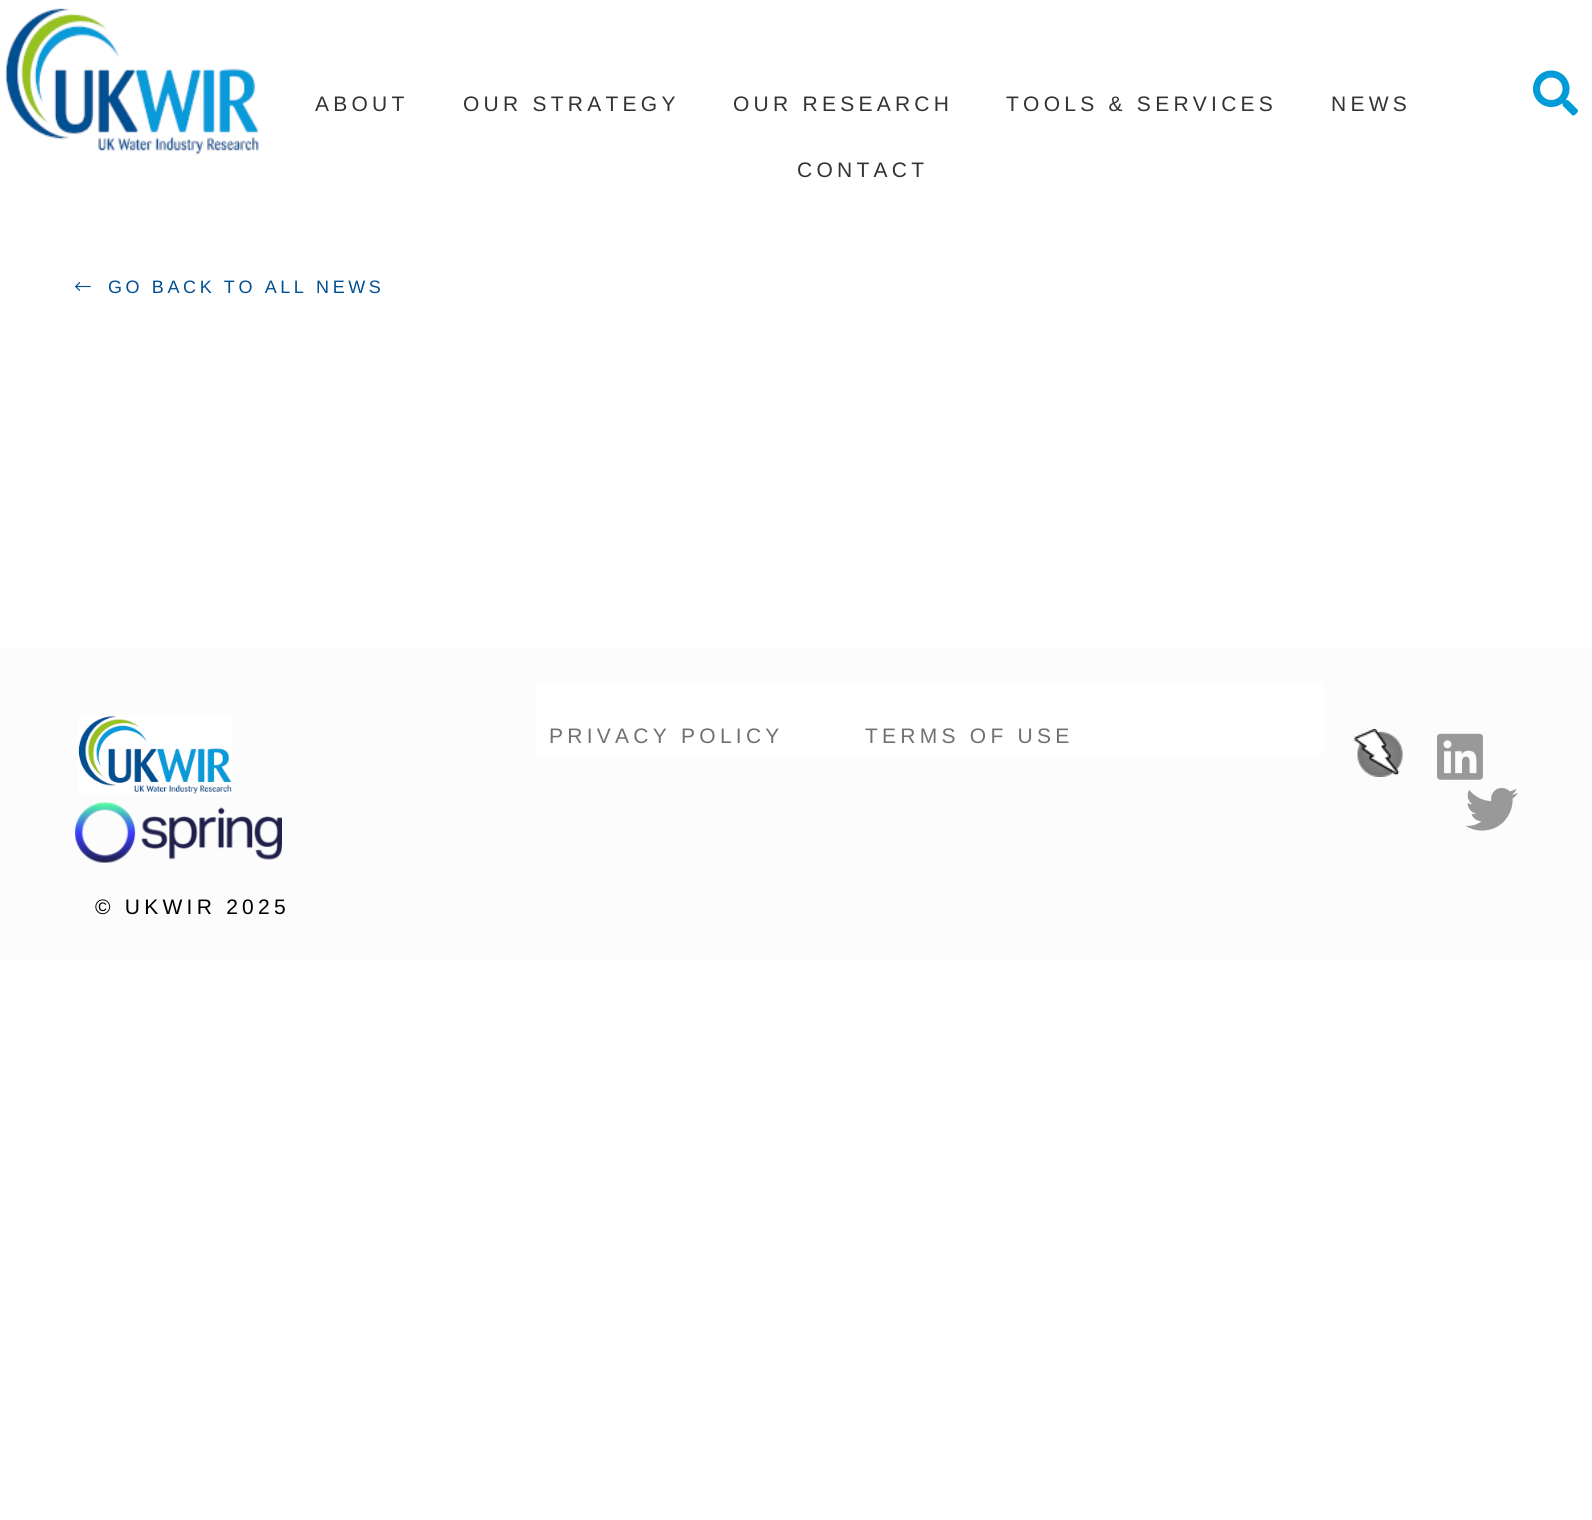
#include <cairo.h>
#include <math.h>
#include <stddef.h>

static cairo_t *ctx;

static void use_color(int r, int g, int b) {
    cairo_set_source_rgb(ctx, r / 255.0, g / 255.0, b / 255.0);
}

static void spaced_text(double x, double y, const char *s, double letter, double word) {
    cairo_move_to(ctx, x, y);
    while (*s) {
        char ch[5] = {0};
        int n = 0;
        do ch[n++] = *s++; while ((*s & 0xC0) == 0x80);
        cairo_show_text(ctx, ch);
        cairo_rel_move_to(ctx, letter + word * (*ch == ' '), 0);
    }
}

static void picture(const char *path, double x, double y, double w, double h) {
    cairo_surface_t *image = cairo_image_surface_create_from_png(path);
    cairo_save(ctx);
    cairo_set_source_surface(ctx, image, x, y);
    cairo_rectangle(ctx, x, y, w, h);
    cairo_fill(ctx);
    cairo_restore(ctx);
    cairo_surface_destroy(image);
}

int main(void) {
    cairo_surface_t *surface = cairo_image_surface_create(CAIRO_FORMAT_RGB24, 1592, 1520);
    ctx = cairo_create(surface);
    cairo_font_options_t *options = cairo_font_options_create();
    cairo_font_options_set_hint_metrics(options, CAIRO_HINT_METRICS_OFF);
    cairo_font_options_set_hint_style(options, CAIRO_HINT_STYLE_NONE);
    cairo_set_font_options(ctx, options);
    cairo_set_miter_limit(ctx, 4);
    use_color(255, 255, 255);
    cairo_paint(ctx);
    picture("img1.png", 5, 8, 254, 147);
    cairo_select_font_face(ctx, "Liberation Sans", CAIRO_FONT_SLANT_NORMAL, CAIRO_FONT_WEIGHT_NORMAL);
    cairo_set_font_size(ctx, 21);
    use_color(51, 51, 51);
    spaced_text(315, 111, "ABOUT", 4.25, 0);
    spaced_text(463, 111, "OUR STRATEGY", 4.25, 0);
    spaced_text(733, 111, "OUR RESEARCH", 4.25, 0);
    spaced_text(1006, 111, "TOOLS & SERVICES", 4.25, 0);
    spaced_text(1331, 111, "NEWS", 4.25, 0);
    spaced_text(797, 177, "CONTACT", 4.25, 0);
    picture("img2.png", 1533, 70, 45, 46);
    picture("img3.png", 75, 282, 16, 9);
    cairo_set_font_size(ctx, 18);
    use_color(0, 79, 145);
    spaced_text(108, 293, "GO BACK TO ALL NEWS", 3.6, 0);
    use_color(252, 252, 252);
    cairo_rectangle(ctx, 0, 648, 1592, 312);
    cairo_fill(ctx);
    use_color(255, 255, 255);
    cairo_rectangle(ctx, 536, 683, 787, 72);
    cairo_fill(ctx);
    cairo_set_font_size(ctx, 21);
    use_color(112, 112, 112);
    spaced_text(549, 743, "PRIVACY POLICY", 4.25, 0);
    spaced_text(865, 743, "TERMS OF USE", 4.25, 0);
    picture("img4.png", 1354, 729, 49, 48);
    picture("img5.png", 1437, 733, 46, 47);
    picture("img6.png", 1465, 788, 53, 43);
    picture("img7.png", 78, 716, 154, 78);
    picture("img8.png", 75, 802, 207, 61);
    use_color(0, 0, 0);
    spaced_text(95, 914, "© UKWIR 2025", 4.25, 0);
    cairo_surface_write_to_png(surface, "result.png");
    cairo_font_options_destroy(options);
    cairo_destroy(ctx);
    cairo_surface_destroy(surface);
    return 0;
}
